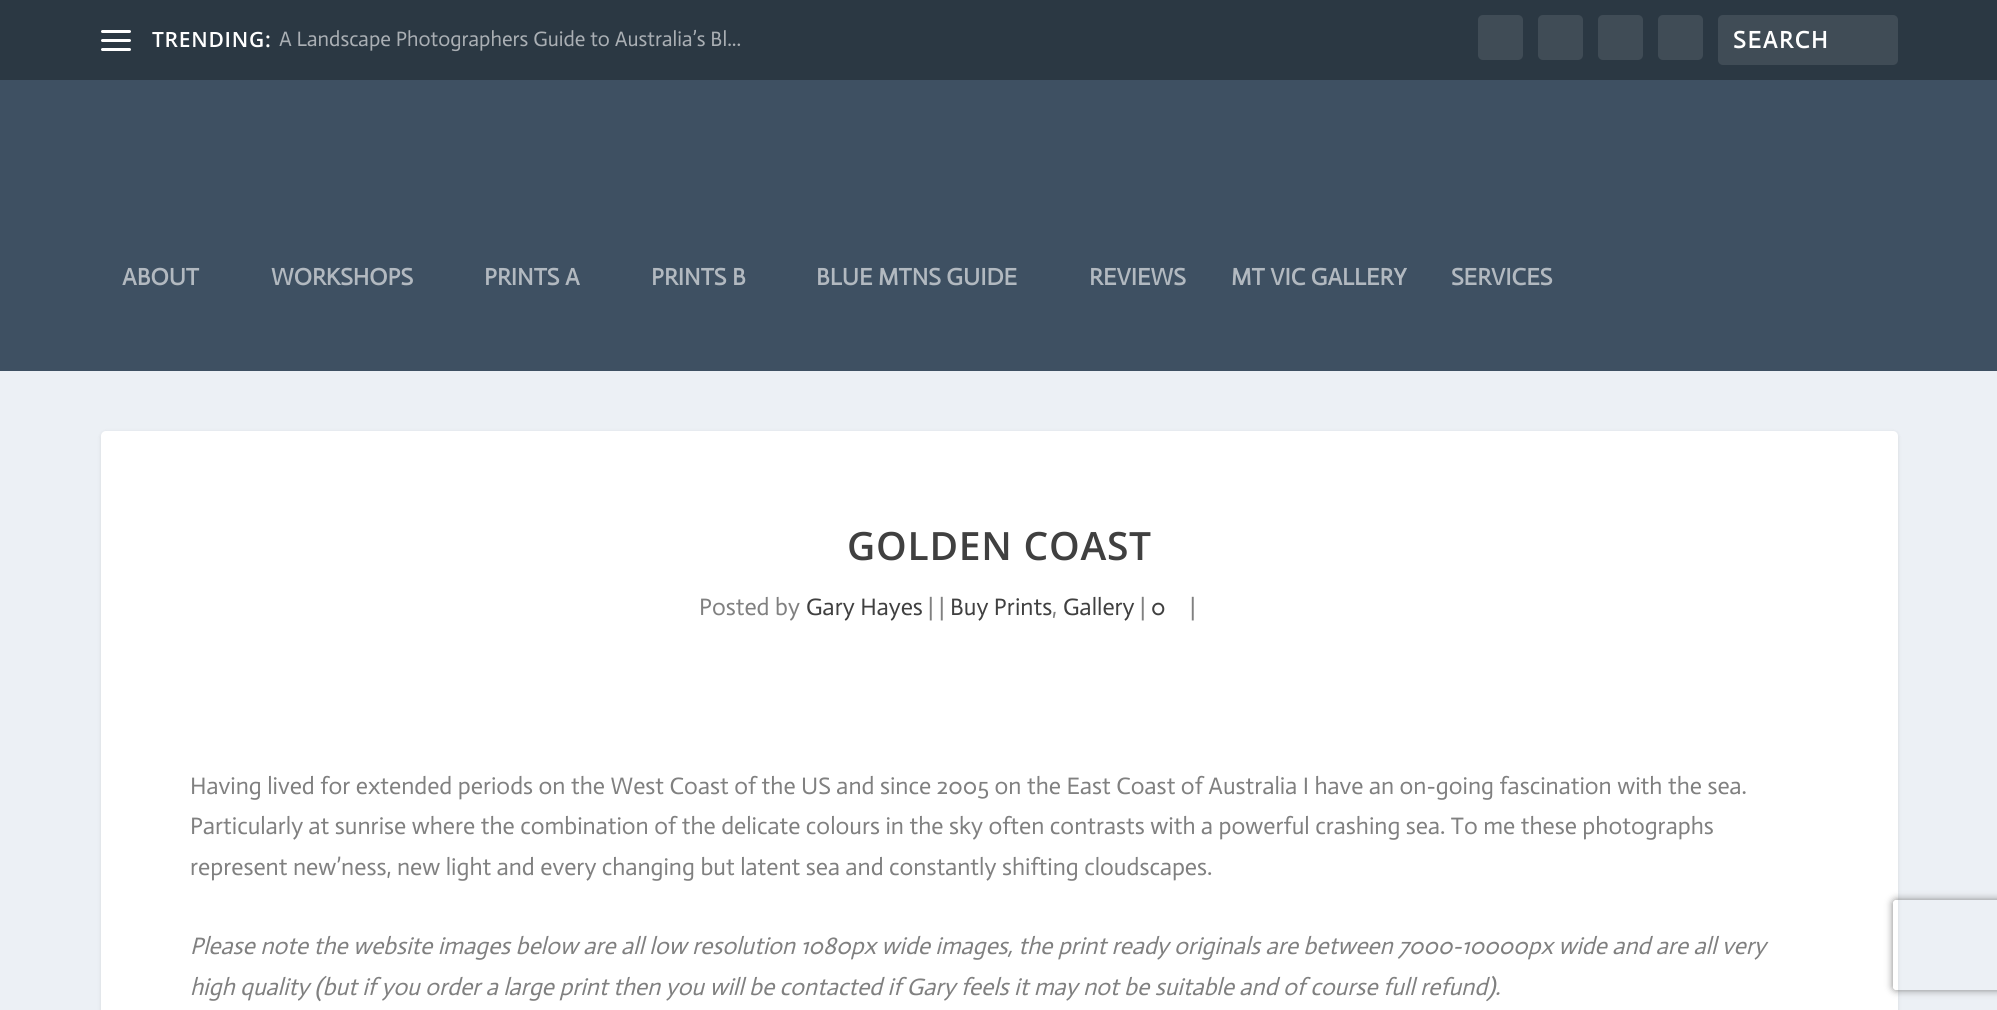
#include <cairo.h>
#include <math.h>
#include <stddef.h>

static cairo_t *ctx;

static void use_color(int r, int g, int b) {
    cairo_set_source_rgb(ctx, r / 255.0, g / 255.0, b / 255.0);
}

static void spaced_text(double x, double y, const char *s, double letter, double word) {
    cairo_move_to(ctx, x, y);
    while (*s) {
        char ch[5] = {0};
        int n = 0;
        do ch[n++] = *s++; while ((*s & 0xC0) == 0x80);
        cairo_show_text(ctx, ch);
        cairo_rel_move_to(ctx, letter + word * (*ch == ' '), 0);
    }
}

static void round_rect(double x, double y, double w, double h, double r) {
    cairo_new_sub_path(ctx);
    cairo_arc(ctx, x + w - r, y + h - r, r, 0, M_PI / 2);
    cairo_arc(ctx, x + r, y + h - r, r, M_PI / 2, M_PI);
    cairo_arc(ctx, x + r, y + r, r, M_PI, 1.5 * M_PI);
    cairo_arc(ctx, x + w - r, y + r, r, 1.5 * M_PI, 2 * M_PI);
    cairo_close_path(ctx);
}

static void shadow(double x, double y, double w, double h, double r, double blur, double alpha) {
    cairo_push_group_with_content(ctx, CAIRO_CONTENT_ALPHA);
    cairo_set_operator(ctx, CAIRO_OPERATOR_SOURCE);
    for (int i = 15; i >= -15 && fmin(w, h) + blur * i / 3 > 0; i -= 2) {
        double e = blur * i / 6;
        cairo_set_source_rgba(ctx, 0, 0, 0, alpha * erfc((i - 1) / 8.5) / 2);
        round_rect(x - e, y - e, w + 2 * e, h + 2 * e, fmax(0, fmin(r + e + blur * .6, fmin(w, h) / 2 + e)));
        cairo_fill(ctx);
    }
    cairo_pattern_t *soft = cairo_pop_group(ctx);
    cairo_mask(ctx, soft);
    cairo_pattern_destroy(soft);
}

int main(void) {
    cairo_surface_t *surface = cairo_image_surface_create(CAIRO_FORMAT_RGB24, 1997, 1010);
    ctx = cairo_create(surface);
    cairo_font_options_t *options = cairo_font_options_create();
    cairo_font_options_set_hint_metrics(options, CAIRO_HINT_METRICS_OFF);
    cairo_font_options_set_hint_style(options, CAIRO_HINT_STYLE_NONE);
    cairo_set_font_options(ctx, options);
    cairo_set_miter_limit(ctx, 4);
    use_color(236, 240, 245);
    cairo_paint(ctx);
    use_color(43, 56, 67);
    cairo_rectangle(ctx, 0, 0, 1997, 80);
    cairo_fill(ctx);
    use_color(255, 255, 255);
    round_rect(101, 30, 30, 3, 1.5);
    cairo_fill(ctx);
    round_rect(101, 39, 30, 3, 1.5);
    cairo_fill(ctx);
    round_rect(101, 48, 30, 3, 1.5);
    cairo_fill(ctx);
    cairo_select_font_face(ctx, "Open Sans SemiBold", CAIRO_FONT_SLANT_NORMAL, CAIRO_FONT_WEIGHT_NORMAL);
    cairo_set_font_size(ctx, 21);
    spaced_text(152, 47, "TRENDING:", 0.75, 0);
    cairo_select_font_face(ctx, "Actor", CAIRO_FONT_SLANT_NORMAL, CAIRO_FONT_WEIGHT_NORMAL);
    use_color(170, 175, 180);
    cairo_move_to(ctx, 279, 46);
    cairo_show_text(ctx, "A Landscape Photographers Guide to Australia’s Bl...");
    use_color(64, 76, 86);
    round_rect(1478, 15, 45, 45, 5);
    cairo_fill(ctx);
    round_rect(1538, 15, 45, 45, 5);
    cairo_fill(ctx);
    round_rect(1598, 15, 45, 45, 5);
    cairo_fill(ctx);
    round_rect(1658, 15, 45, 45, 5);
    cairo_fill(ctx);
    round_rect(1718, 15, 180, 50, 5);
    cairo_fill(ctx);
    cairo_select_font_face(ctx, "Actor", CAIRO_FONT_SLANT_NORMAL, CAIRO_FONT_WEIGHT_BOLD);
    cairo_set_font_size(ctx, 24);
    use_color(255, 255, 255);
    spaced_text(1733, 48, "SEARCH", 1.75, 0);
    use_color(62, 80, 98);
    cairo_rectangle(ctx, 0, 80, 1997, 291);
    cairo_fill(ctx);
    use_color(178, 185, 192);
    cairo_move_to(ctx, 122, 285);
    cairo_show_text(ctx, "ABOUT");
    cairo_move_to(ctx, 271, 285);
    cairo_show_text(ctx, "WORKSHOPS");
    cairo_move_to(ctx, 484, 285);
    cairo_show_text(ctx, "PRINTS A");
    cairo_move_to(ctx, 651, 285);
    cairo_show_text(ctx, "PRINTS B");
    cairo_move_to(ctx, 816, 285);
    cairo_show_text(ctx, "BLUE MTNS GUIDE");
    cairo_move_to(ctx, 1089, 285);
    cairo_show_text(ctx, "REVIEWS");
    cairo_move_to(ctx, 1231, 285);
    cairo_show_text(ctx, "MT VIC GALLERY");
    cairo_move_to(ctx, 1451, 285);
    cairo_show_text(ctx, "SERVICES");
    use_color(0, 0, 0);
    shadow(101, 432, 1797, 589, 5, 2, 0.1);
    use_color(255, 255, 255);
    round_rect(101, 431, 1797, 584, 5);
    cairo_fill(ctx);
    cairo_select_font_face(ctx, "Open Sans SemiBold", CAIRO_FONT_SLANT_NORMAL, CAIRO_FONT_WEIGHT_NORMAL);
    cairo_set_font_size(ctx, 39);
    use_color(64, 64, 64);
    spaced_text(847, 560, "GOLDEN COAST", 0.75, 0);
    cairo_select_font_face(ctx, "Actor", CAIRO_FONT_SLANT_NORMAL, CAIRO_FONT_WEIGHT_NORMAL);
    cairo_set_font_size(ctx, 24);
    use_color(128, 128, 128);
    cairo_move_to(ctx, 699, 615);
    cairo_show_text(ctx, "Posted by");
    use_color(64, 64, 64);
    cairo_move_to(ctx, 806, 615);
    cairo_show_text(ctx, "Gary Hayes");
    use_color(128, 128, 128);
    cairo_move_to(ctx, 928, 615);
    cairo_show_text(ctx, "| |");
    use_color(64, 64, 64);
    cairo_move_to(ctx, 950, 615);
    cairo_show_text(ctx, "Buy Prints");
    use_color(128, 128, 128);
    cairo_move_to(ctx, 1052, 615);
    cairo_show_text(ctx, ",");
    use_color(64, 64, 64);
    cairo_move_to(ctx, 1063, 615);
    cairo_show_text(ctx, "Gallery");
    use_color(128, 128, 128);
    cairo_move_to(ctx, 1140, 615);
    cairo_show_text(ctx, "|");
    use_color(64, 64, 64);
    cairo_move_to(ctx, 1151, 615);
    cairo_show_text(ctx, "0");
    use_color(128, 128, 128);
    cairo_move_to(ctx, 1190, 615);
    cairo_show_text(ctx, "|");
    cairo_move_to(ctx, 190, 794);
    cairo_show_text(ctx, "Having lived for extended periods on the West Coast of the US and since 2005 on the East Coast of Australia I have an on-going fascination with the sea.");
    cairo_move_to(ctx, 190, 834);
    cairo_show_text(ctx, "Particularly at sunrise where the combination of the delicate colours in the sky often contrasts with a powerful crashing sea. To me these photographs");
    cairo_move_to(ctx, 190, 875);
    cairo_show_text(ctx, "represent new’ness, new light and every changing but latent sea and constantly shifting cloudscapes.");
    cairo_select_font_face(ctx, "Actor", CAIRO_FONT_SLANT_ITALIC, CAIRO_FONT_WEIGHT_NORMAL);
    cairo_move_to(ctx, 190, 954);
    cairo_show_text(ctx, "Please note the website images below are all low resolution 1080px wide images, the print ready originals are between 7000-10000px wide and are all very");
    cairo_move_to(ctx, 190, 995);
    cairo_show_text(ctx, "high quality (but if you order a large print then you will be contacted if Gary feels it may not be suitable and of course full refund).");
    cairo_save(ctx);
    cairo_set_fill_rule(ctx, CAIRO_FILL_RULE_EVEN_ODD);
    cairo_new_path(ctx);
    cairo_move_to(ctx, 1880, 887);
    cairo_line_to(ctx, 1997, 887);
    cairo_line_to(ctx, 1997, 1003);
    cairo_line_to(ctx, 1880, 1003);
    cairo_close_path(ctx);
    cairo_move_to(ctx, 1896, 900);
    cairo_line_to(ctx, 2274, 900);
    cairo_curve_to(ctx, 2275.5, 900, 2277, 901.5, 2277, 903);
    cairo_line_to(ctx, 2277, 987);
    cairo_curve_to(ctx, 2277, 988.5, 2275.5, 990, 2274, 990);
    cairo_line_to(ctx, 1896, 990);
    cairo_curve_to(ctx, 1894.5, 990, 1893, 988.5, 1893, 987);
    cairo_line_to(ctx, 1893, 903);
    cairo_curve_to(ctx, 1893, 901.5, 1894.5, 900, 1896, 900);
    cairo_close_path(ctx);
    cairo_clip(ctx);
    use_color(128, 128, 128);
    shadow(1893, 900, 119, 90, 3, 4, 1);
    cairo_restore(ctx);
    cairo_surface_write_to_png(surface, "result.png");
    cairo_font_options_destroy(options);
    cairo_destroy(ctx);
    cairo_surface_destroy(surface);
    return 0;
}
